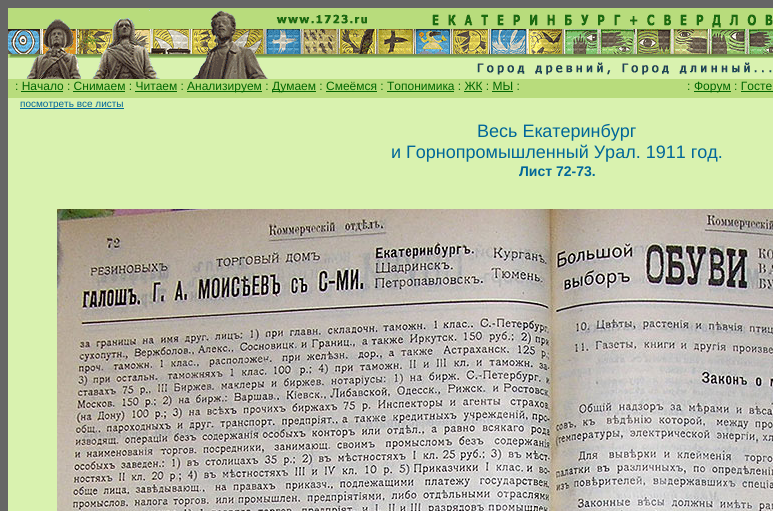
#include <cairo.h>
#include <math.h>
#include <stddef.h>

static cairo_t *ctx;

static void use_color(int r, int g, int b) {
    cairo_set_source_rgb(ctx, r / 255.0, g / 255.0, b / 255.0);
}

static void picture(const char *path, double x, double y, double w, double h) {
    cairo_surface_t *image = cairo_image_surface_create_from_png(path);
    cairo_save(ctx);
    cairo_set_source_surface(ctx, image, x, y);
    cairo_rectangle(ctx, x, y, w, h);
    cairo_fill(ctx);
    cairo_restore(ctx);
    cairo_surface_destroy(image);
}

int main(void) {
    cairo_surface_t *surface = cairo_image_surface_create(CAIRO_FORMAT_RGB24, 773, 511);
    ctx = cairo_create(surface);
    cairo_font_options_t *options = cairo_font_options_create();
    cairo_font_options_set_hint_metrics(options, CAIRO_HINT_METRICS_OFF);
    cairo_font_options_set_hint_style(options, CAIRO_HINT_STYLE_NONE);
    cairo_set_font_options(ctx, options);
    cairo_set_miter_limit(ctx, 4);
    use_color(102, 102, 102);
    cairo_paint(ctx);
    use_color(184, 220, 124);
    cairo_rectangle(ctx, 8, 8, 765, 1);
    cairo_fill(ctx);
    picture("img1.png", 8, 9, 765, 70);
    use_color(217, 242, 175);
    cairo_rectangle(ctx, 8, 98, 765, 413);
    cairo_fill(ctx);
    use_color(184, 220, 124);
    cairo_rectangle(ctx, 8, 79, 765, 19);
    cairo_fill(ctx);
    cairo_select_font_face(ctx, "Liberation Sans", CAIRO_FONT_SLANT_NORMAL, CAIRO_FONT_WEIGHT_NORMAL);
    cairo_set_font_size(ctx, 12);
    use_color(0, 102, 0);
    cairo_move_to(ctx, 15, 90);
    cairo_show_text(ctx, ": Начало : Снимаем : Читаем :");
    cairo_rectangle(ctx, 187, 91, 75, 1);
    cairo_fill(ctx);
    cairo_move_to(ctx, 187, 90);
    cairo_show_text(ctx, "Анализируем :");
    cairo_rectangle(ctx, 272, 91, 44, 1);
    cairo_fill(ctx);
    cairo_move_to(ctx, 272, 90);
    cairo_show_text(ctx, "Думаем : Смеёмся : Топонимика : ЖК : МЫ :");
    cairo_rectangle(ctx, 21, 91, 42, 1);
    cairo_fill(ctx);
    cairo_rectangle(ctx, 73, 91, 52, 1);
    cairo_fill(ctx);
    cairo_rectangle(ctx, 135, 91, 42, 1);
    cairo_fill(ctx);
    cairo_rectangle(ctx, 326, 91, 51, 1);
    cairo_fill(ctx);
    cairo_rectangle(ctx, 387, 91, 67, 1);
    cairo_fill(ctx);
    cairo_rectangle(ctx, 464, 91, 18, 1);
    cairo_fill(ctx);
    cairo_rectangle(ctx, 492, 91, 21, 1);
    cairo_fill(ctx);
    cairo_move_to(ctx, 687, 90);
    cairo_show_text(ctx, ":");
    cairo_rectangle(ctx, 694, 91, 37, 1);
    cairo_fill(ctx);
    cairo_move_to(ctx, 694, 90);
    cairo_show_text(ctx, "Форум : Госте");
    cairo_rectangle(ctx, 741, 91, 32, 1);
    cairo_fill(ctx);
    use_color(0, 102, 153);
    cairo_rectangle(ctx, 20, 108, 104, 1);
    cairo_fill(ctx);
    cairo_set_font_size(ctx, 10);
    cairo_move_to(ctx, 20, 107);
    cairo_show_text(ctx, "посмотреть все листы");
    cairo_set_font_size(ctx, 18);
    cairo_move_to(ctx, 477, 137);
    cairo_show_text(ctx, "Весь Екатеринбург");
    cairo_move_to(ctx, 391, 158);
    cairo_show_text(ctx, "и Горнопромышленный Урал. 1911 год.");
    cairo_select_font_face(ctx, "Liberation Sans", CAIRO_FONT_SLANT_NORMAL, CAIRO_FONT_WEIGHT_BOLD);
    cairo_set_font_size(ctx, 14);
    cairo_move_to(ctx, 519, 176);
    cairo_show_text(ctx, "Лист 72-73.");
    picture("img2.png", 57, 209, 716, 302);
    cairo_surface_write_to_png(surface, "result.png");
    cairo_font_options_destroy(options);
    cairo_destroy(ctx);
    cairo_surface_destroy(surface);
    return 0;
}
